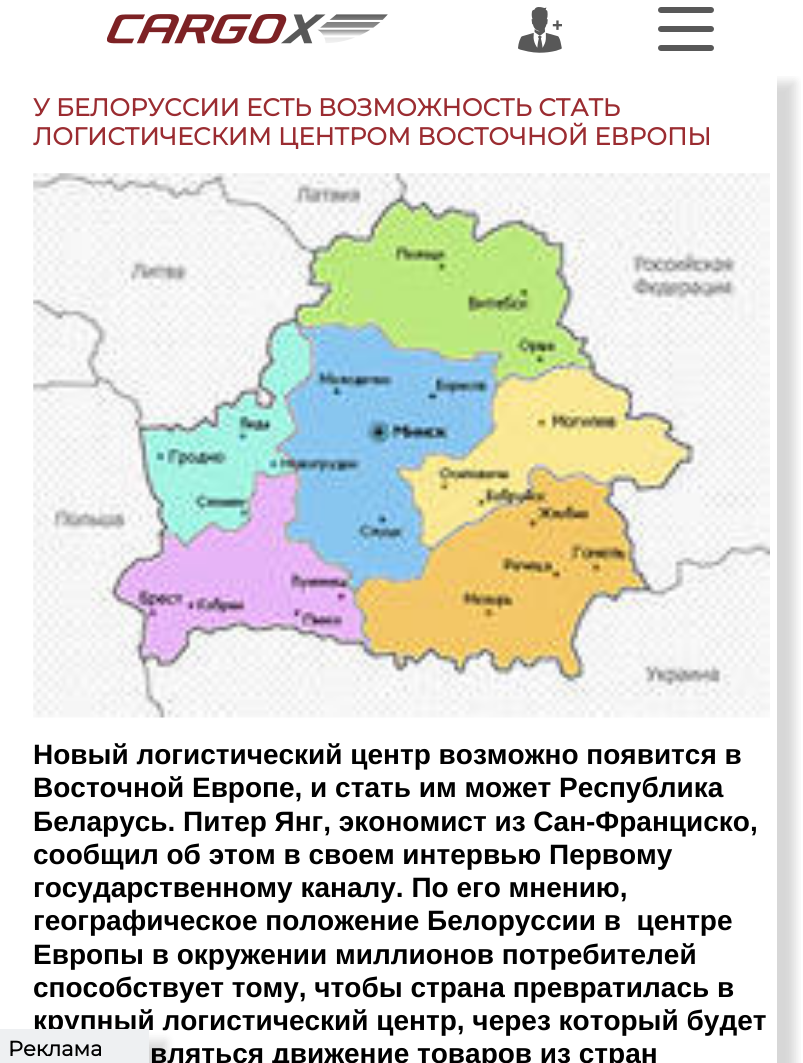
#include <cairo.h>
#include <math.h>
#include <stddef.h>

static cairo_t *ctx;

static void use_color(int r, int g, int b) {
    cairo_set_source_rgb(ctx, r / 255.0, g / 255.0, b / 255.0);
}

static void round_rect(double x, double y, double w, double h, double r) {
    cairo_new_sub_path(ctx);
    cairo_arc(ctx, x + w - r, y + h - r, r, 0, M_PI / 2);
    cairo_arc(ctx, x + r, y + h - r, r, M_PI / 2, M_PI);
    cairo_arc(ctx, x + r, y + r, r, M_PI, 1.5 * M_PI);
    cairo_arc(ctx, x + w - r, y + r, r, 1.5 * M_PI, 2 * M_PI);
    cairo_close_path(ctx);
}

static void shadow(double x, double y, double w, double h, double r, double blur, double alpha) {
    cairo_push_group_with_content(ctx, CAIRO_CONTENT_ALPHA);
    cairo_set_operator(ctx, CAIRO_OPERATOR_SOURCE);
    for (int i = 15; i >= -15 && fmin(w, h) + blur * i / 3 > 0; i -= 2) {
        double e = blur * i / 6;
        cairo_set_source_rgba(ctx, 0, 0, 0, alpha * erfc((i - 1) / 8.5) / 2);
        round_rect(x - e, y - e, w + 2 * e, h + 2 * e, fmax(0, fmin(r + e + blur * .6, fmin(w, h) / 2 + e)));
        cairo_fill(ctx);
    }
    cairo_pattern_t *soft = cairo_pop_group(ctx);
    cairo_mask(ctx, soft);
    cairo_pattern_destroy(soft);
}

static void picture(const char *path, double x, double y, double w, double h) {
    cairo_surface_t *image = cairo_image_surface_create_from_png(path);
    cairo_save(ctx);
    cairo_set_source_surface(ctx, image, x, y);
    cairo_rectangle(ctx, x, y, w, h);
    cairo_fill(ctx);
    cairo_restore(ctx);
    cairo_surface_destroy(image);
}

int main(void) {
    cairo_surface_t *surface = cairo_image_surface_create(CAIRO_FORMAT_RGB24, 803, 1063);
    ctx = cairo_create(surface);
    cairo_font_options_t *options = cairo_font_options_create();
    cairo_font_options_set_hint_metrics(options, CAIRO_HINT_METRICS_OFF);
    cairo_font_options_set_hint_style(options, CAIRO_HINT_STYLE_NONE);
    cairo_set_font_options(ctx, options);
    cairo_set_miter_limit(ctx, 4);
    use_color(255, 255, 255);
    cairo_paint(ctx);
    picture("img1.png", 107, 14, 281, 30);
    picture("img2.png", 518, 7, 44, 46);
    use_color(88, 88, 88);
    round_rect(658, 7, 56, 6, 3);
    cairo_fill(ctx);
    round_rect(658, 26, 56, 6, 3);
    cairo_fill(ctx);
    round_rect(658, 45, 56, 6, 3);
    cairo_fill(ctx);
    cairo_save(ctx);
    cairo_rectangle(ctx, 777, 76, 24, 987);
    cairo_clip(ctx);
    use_color(0, 0, 0);
    shadow(44, 82, 751, 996, 0, 5, 0.16);
    cairo_restore(ctx);
    cairo_select_font_face(ctx, "Montserrat", CAIRO_FONT_SLANT_NORMAL, CAIRO_FONT_WEIGHT_BOLD);
    cairo_set_font_size(ctx, 24.5);
    use_color(155, 44, 49);
    cairo_move_to(ctx, 33, 116);
    cairo_show_text(ctx, "У БЕЛОРУССИИ ЕСТЬ ВОЗМОЖНОСТЬ СТАТЬ");
    cairo_move_to(ctx, 33, 145);
    cairo_show_text(ctx, "ЛОГИСТИЧЕСКИМ ЦЕНТРОМ ВОСТОЧНОЙ ЕВРОПЫ");
    picture("img3.png", 33, 173, 737, 545);
    cairo_select_font_face(ctx, "Liberation Sans", CAIRO_FONT_SLANT_NORMAL, CAIRO_FONT_WEIGHT_BOLD);
    cairo_set_font_size(ctx, 28);
    use_color(0, 0, 0);
    cairo_move_to(ctx, 33, 764);
    cairo_show_text(ctx, "Новый логистический центр возможно появится в");
    cairo_move_to(ctx, 33, 797);
    cairo_show_text(ctx, "Восточной Европе, и стать им может Республика");
    cairo_move_to(ctx, 33, 831);
    cairo_show_text(ctx, "Беларусь. Питер Янг, экономист из Сан-Франциско,");
    cairo_move_to(ctx, 33, 864);
    cairo_show_text(ctx, "сообщил об этом в своем интервью Первому");
    cairo_move_to(ctx, 33, 897);
    cairo_show_text(ctx, "государственному каналу. По его мнению,");
    cairo_move_to(ctx, 33, 930);
    cairo_show_text(ctx, "географическое положение Белоруссии в  центре");
    cairo_move_to(ctx, 33, 964);
    cairo_show_text(ctx, "Европы в окружении миллионов потребителей");
    cairo_move_to(ctx, 33, 997);
    cairo_show_text(ctx, "способствует тому, чтобы страна превратилась в");
    cairo_move_to(ctx, 33, 1030);
    cairo_show_text(ctx, "крупный логистический центр, через который будет");
    cairo_move_to(ctx, 150, 1063);
    cairo_show_text(ctx, "вляться движение товаров из стран");
    use_color(0, 0, 0);
    shadow(18, 1041, 148, 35, 0, 5, 0.16);
    use_color(238, 240, 242);
    cairo_rectangle(ctx, 0, 1029, 149, 34);
    cairo_fill(ctx);
    cairo_select_font_face(ctx, "Montserrat", CAIRO_FONT_SLANT_NORMAL, CAIRO_FONT_WEIGHT_BOLD);
    cairo_set_font_size(ctx, 21);
    use_color(0, 0, 0);
    cairo_move_to(ctx, 8, 1056);
    cairo_show_text(ctx, "Реклама");
    cairo_surface_write_to_png(surface, "result.png");
    cairo_font_options_destroy(options);
    cairo_destroy(ctx);
    cairo_surface_destroy(surface);
    return 0;
}
